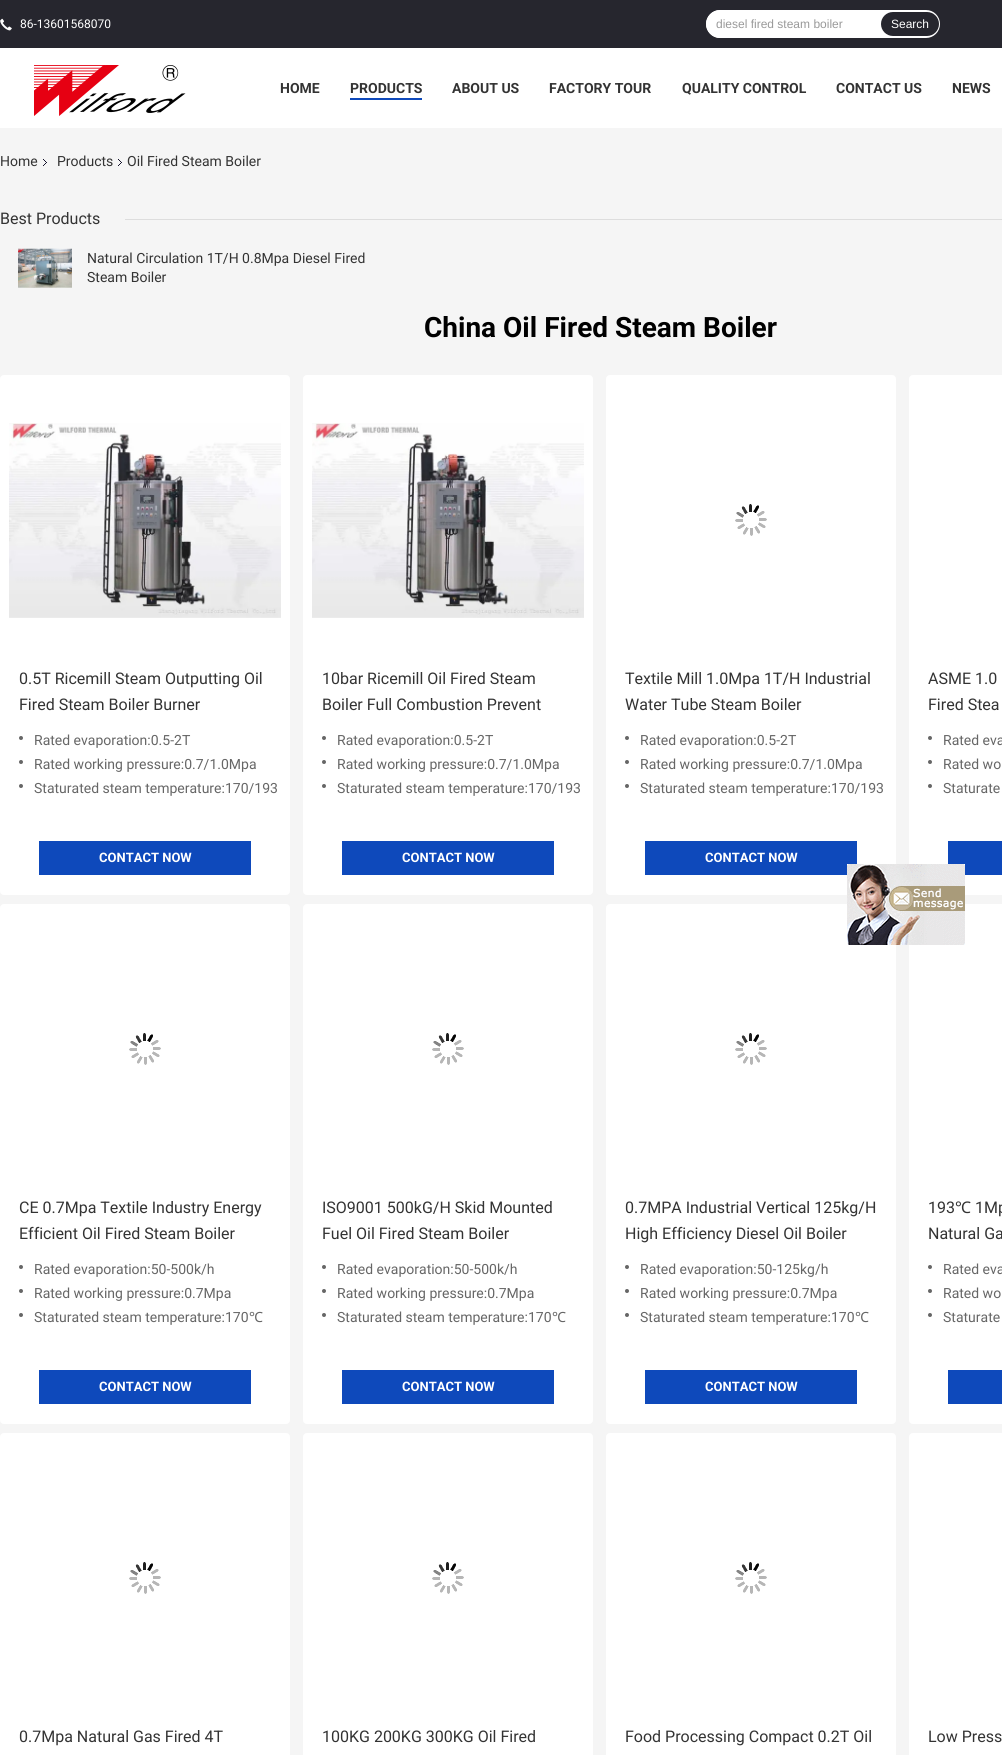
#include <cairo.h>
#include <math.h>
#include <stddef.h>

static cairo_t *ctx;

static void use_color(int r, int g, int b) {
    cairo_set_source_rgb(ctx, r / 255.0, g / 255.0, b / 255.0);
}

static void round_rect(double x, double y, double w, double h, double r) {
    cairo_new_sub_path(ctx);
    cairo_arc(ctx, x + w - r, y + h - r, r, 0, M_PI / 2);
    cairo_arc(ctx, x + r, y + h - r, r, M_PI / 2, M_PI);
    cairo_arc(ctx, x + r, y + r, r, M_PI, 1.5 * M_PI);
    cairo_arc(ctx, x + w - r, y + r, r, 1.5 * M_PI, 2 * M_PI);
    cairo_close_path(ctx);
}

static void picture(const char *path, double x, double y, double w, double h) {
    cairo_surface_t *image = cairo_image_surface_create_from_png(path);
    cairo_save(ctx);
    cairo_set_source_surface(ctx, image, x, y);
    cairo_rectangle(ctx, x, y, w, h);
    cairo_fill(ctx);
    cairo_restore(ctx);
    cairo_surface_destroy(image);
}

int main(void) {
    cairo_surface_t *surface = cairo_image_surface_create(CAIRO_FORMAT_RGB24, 1002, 1755);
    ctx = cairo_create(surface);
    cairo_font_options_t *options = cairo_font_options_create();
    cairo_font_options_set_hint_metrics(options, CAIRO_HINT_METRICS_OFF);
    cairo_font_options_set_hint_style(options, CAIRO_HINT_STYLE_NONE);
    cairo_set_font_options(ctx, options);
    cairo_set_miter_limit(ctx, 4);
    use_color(245, 245, 245);
    cairo_paint(ctx);
    use_color(255, 255, 255);
    cairo_rectangle(ctx, 0, 48, 1002, 80);
    cairo_fill(ctx);
    use_color(38, 38, 46);
    cairo_rectangle(ctx, 0, 0, 1002, 48);
    cairo_fill(ctx);
    picture("img1.png", 0, 18, 12, 13);
    cairo_select_font_face(ctx, "Roboto", CAIRO_FONT_SLANT_NORMAL, CAIRO_FONT_WEIGHT_NORMAL);
    cairo_set_font_size(ctx, 12);
    use_color(255, 255, 255);
    cairo_move_to(ctx, 20, 28);
    cairo_show_text(ctx, "86-13601568070");
    round_rect(706, 10, 234, 28, 14);
    cairo_fill(ctx);
    cairo_new_path(ctx);
    cairo_move_to(ctx, 720, 10);
    cairo_line_to(ctx, 881, 10);
    cairo_line_to(ctx, 881, 38);
    cairo_line_to(ctx, 720, 38);
    cairo_curve_to(ctx, 712.5, 38, 706, 31.5, 706, 24);
    cairo_curve_to(ctx, 706, 16.5, 712.5, 10, 720, 10);
    cairo_close_path(ctx);
    cairo_fill(ctx);
    cairo_select_font_face(ctx, "Liberation Sans", CAIRO_FONT_SLANT_NORMAL, CAIRO_FONT_WEIGHT_NORMAL);
    use_color(153, 153, 153);
    cairo_move_to(ctx, 716, 28);
    cairo_show_text(ctx, "diesel fired steam boiler");
    use_color(38, 38, 46);
    round_rect(881, 12, 58, 24, 12);
    cairo_fill(ctx);
    use_color(255, 255, 255);
    cairo_move_to(ctx, 891, 28);
    cairo_show_text(ctx, "Search");
    picture("img2.png", 34, 65, 152, 51);
    cairo_select_font_face(ctx, "Roboto", CAIRO_FONT_SLANT_NORMAL, CAIRO_FONT_WEIGHT_BOLD);
    cairo_set_font_size(ctx, 14);
    use_color(51, 51, 51);
    cairo_move_to(ctx, 280, 93);
    cairo_show_text(ctx, "HOME");
    cairo_move_to(ctx, 350, 93);
    cairo_show_text(ctx, "PRODUCTS");
    use_color(14, 73, 187);
    cairo_rectangle(ctx, 350, 98, 72, 2);
    cairo_fill(ctx);
    use_color(51, 51, 51);
    cairo_move_to(ctx, 452, 93);
    cairo_show_text(ctx, "ABOUT US");
    cairo_move_to(ctx, 549, 93);
    cairo_show_text(ctx, "FACTORY TOUR");
    cairo_move_to(ctx, 682, 93);
    cairo_show_text(ctx, "QUALITY CONTROL");
    cairo_move_to(ctx, 836, 93);
    cairo_show_text(ctx, "CONTACT US");
    cairo_move_to(ctx, 952, 93);
    cairo_show_text(ctx, "NEWS");
    cairo_select_font_face(ctx, "Roboto", CAIRO_FONT_SLANT_NORMAL, CAIRO_FONT_WEIGHT_NORMAL);
    cairo_move_to(ctx, 0, 166);
    cairo_show_text(ctx, "Home");
    picture("img3.png", 43, 159, 4, 7);
    cairo_move_to(ctx, 57, 166);
    cairo_show_text(ctx, "Products");
    picture("img3.png", 118, 159, 4, 7);
    cairo_move_to(ctx, 127, 166);
    cairo_show_text(ctx, "Oil Fired Steam Boiler");
    cairo_set_font_size(ctx, 16);
    cairo_move_to(ctx, 0, 224);
    cairo_show_text(ctx, "Best Products");
    use_color(221, 221, 221);
    cairo_rectangle(ctx, 125, 219, 877, 1);
    cairo_fill(ctx);
    picture("img4.png", 18, 248, 54, 40);
    cairo_set_font_size(ctx, 14);
    use_color(51, 51, 51);
    cairo_move_to(ctx, 87, 263);
    cairo_show_text(ctx, "Natural Circulation 1T/H 0.8Mpa Diesel Fired");
    cairo_move_to(ctx, 87, 282);
    cairo_show_text(ctx, "Steam Boiler");
    cairo_select_font_face(ctx, "Roboto", CAIRO_FONT_SLANT_NORMAL, CAIRO_FONT_WEIGHT_BOLD);
    cairo_set_font_size(ctx, 28);
    use_color(0, 0, 0);
    cairo_move_to(ctx, 424, 337);
    cairo_show_text(ctx, "China Oil Fired Steam Boiler");
    use_color(255, 255, 255);
    round_rect(0, 375, 290, 520, 4);
    cairo_fill(ctx);
    picture("img5.png", 9, 423, 272, 195);
    cairo_select_font_face(ctx, "Roboto", CAIRO_FONT_SLANT_NORMAL, CAIRO_FONT_WEIGHT_NORMAL);
    cairo_set_font_size(ctx, 16);
    use_color(51, 51, 51);
    cairo_move_to(ctx, 19, 684);
    cairo_show_text(ctx, "0.5T Ricemill Steam Outputting Oil");
    cairo_move_to(ctx, 19, 710);
    cairo_show_text(ctx, "Fired Steam Boiler Burner");
    use_color(102, 102, 102);
    cairo_new_path(ctx);
    cairo_arc(ctx, 21, 738, 2, 0, 2 * M_PI);
    cairo_fill(ctx);
    cairo_set_font_size(ctx, 14);
    cairo_move_to(ctx, 34, 745);
    cairo_show_text(ctx, "Rated evaporation:0.5-2T");
    cairo_new_path(ctx);
    cairo_arc(ctx, 21, 762, 2, 0, 2 * M_PI);
    cairo_fill(ctx);
    cairo_move_to(ctx, 34, 769);
    cairo_show_text(ctx, "Rated working pressure:0.7/1.0Mpa");
    cairo_new_path(ctx);
    cairo_arc(ctx, 21, 786, 2, 0, 2 * M_PI);
    cairo_fill(ctx);
    cairo_move_to(ctx, 34, 793);
    cairo_show_text(ctx, "Staturated steam temperature:170/193");
    use_color(14, 73, 187);
    cairo_rectangle(ctx, 39, 841, 212, 34);
    cairo_fill(ctx);
    cairo_select_font_face(ctx, "Roboto", CAIRO_FONT_SLANT_NORMAL, CAIRO_FONT_WEIGHT_BOLD);
    cairo_set_font_size(ctx, 13);
    use_color(255, 255, 255);
    cairo_move_to(ctx, 99, 862);
    cairo_show_text(ctx, "CONTACT NOW");
    round_rect(303, 375, 290, 520, 4);
    cairo_fill(ctx);
    picture("img5.png", 312, 423, 272, 195);
    cairo_select_font_face(ctx, "Roboto", CAIRO_FONT_SLANT_NORMAL, CAIRO_FONT_WEIGHT_NORMAL);
    cairo_set_font_size(ctx, 16);
    use_color(51, 51, 51);
    cairo_move_to(ctx, 322, 684);
    cairo_show_text(ctx, "10bar Ricemill Oil Fired Steam");
    cairo_move_to(ctx, 322, 710);
    cairo_show_text(ctx, "Boiler Full Combustion Prevent");
    use_color(102, 102, 102);
    cairo_new_path(ctx);
    cairo_arc(ctx, 324, 738, 2, 0, 2 * M_PI);
    cairo_fill(ctx);
    cairo_set_font_size(ctx, 14);
    cairo_move_to(ctx, 337, 745);
    cairo_show_text(ctx, "Rated evaporation:0.5-2T");
    cairo_new_path(ctx);
    cairo_arc(ctx, 324, 762, 2, 0, 2 * M_PI);
    cairo_fill(ctx);
    cairo_move_to(ctx, 337, 769);
    cairo_show_text(ctx, "Rated working pressure:0.7/1.0Mpa");
    cairo_new_path(ctx);
    cairo_arc(ctx, 324, 786, 2, 0, 2 * M_PI);
    cairo_fill(ctx);
    cairo_move_to(ctx, 337, 793);
    cairo_show_text(ctx, "Staturated steam temperature:170/193");
    use_color(14, 73, 187);
    cairo_rectangle(ctx, 342, 841, 212, 34);
    cairo_fill(ctx);
    cairo_select_font_face(ctx, "Roboto", CAIRO_FONT_SLANT_NORMAL, CAIRO_FONT_WEIGHT_BOLD);
    cairo_set_font_size(ctx, 13);
    use_color(255, 255, 255);
    cairo_move_to(ctx, 402, 862);
    cairo_show_text(ctx, "CONTACT NOW");
    round_rect(606, 375, 290, 520, 4);
    cairo_fill(ctx);
    picture("img6.png", 735, 504, 32, 32);
    cairo_select_font_face(ctx, "Roboto", CAIRO_FONT_SLANT_NORMAL, CAIRO_FONT_WEIGHT_NORMAL);
    cairo_set_font_size(ctx, 16);
    use_color(51, 51, 51);
    cairo_move_to(ctx, 625, 684);
    cairo_show_text(ctx, "Textile Mill 1.0Mpa 1T/H Industrial");
    cairo_move_to(ctx, 625, 710);
    cairo_show_text(ctx, "Water Tube Steam Boiler");
    use_color(102, 102, 102);
    cairo_new_path(ctx);
    cairo_arc(ctx, 627, 738, 2, 0, 2 * M_PI);
    cairo_fill(ctx);
    cairo_set_font_size(ctx, 14);
    cairo_move_to(ctx, 640, 745);
    cairo_show_text(ctx, "Rated evaporation:0.5-2T");
    cairo_new_path(ctx);
    cairo_arc(ctx, 627, 762, 2, 0, 2 * M_PI);
    cairo_fill(ctx);
    cairo_move_to(ctx, 640, 769);
    cairo_show_text(ctx, "Rated working pressure:0.7/1.0Mpa");
    cairo_new_path(ctx);
    cairo_arc(ctx, 627, 786, 2, 0, 2 * M_PI);
    cairo_fill(ctx);
    cairo_move_to(ctx, 640, 793);
    cairo_show_text(ctx, "Staturated steam temperature:170/193");
    use_color(14, 73, 187);
    cairo_rectangle(ctx, 645, 841, 212, 34);
    cairo_fill(ctx);
    cairo_select_font_face(ctx, "Roboto", CAIRO_FONT_SLANT_NORMAL, CAIRO_FONT_WEIGHT_BOLD);
    cairo_set_font_size(ctx, 13);
    use_color(255, 255, 255);
    cairo_move_to(ctx, 705, 862);
    cairo_show_text(ctx, "CONTACT NOW");
    round_rect(909, 375, 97, 520, 4);
    cairo_fill(ctx);
    cairo_select_font_face(ctx, "Roboto", CAIRO_FONT_SLANT_NORMAL, CAIRO_FONT_WEIGHT_NORMAL);
    cairo_set_font_size(ctx, 16);
    use_color(51, 51, 51);
    cairo_move_to(ctx, 928, 684);
    cairo_show_text(ctx, "ASME 1.0");
    cairo_move_to(ctx, 928, 710);
    cairo_show_text(ctx, "Fired Stea");
    use_color(102, 102, 102);
    cairo_new_path(ctx);
    cairo_arc(ctx, 930, 738, 2, 0, 2 * M_PI);
    cairo_fill(ctx);
    cairo_set_font_size(ctx, 14);
    cairo_move_to(ctx, 943, 745);
    cairo_show_text(ctx, "Rated eva");
    cairo_new_path(ctx);
    cairo_arc(ctx, 930, 762, 2, 0, 2 * M_PI);
    cairo_fill(ctx);
    cairo_move_to(ctx, 943, 769);
    cairo_show_text(ctx, "Rated wo");
    cairo_new_path(ctx);
    cairo_arc(ctx, 930, 786, 2, 0, 2 * M_PI);
    cairo_fill(ctx);
    cairo_move_to(ctx, 943, 793);
    cairo_show_text(ctx, "Staturate");
    use_color(14, 73, 187);
    cairo_rectangle(ctx, 948, 841, 54, 34);
    cairo_fill(ctx);
    use_color(255, 255, 255);
    round_rect(0, 904, 290, 520, 4);
    cairo_fill(ctx);
    picture("img6.png", 129, 1033, 32, 32);
    cairo_set_font_size(ctx, 16);
    use_color(51, 51, 51);
    cairo_move_to(ctx, 19, 1213);
    cairo_show_text(ctx, "CE 0.7Mpa Textile Industry Energy");
    cairo_move_to(ctx, 19, 1239);
    cairo_show_text(ctx, "Efficient Oil Fired Steam Boiler");
    use_color(102, 102, 102);
    cairo_new_path(ctx);
    cairo_arc(ctx, 21, 1267, 2, 0, 2 * M_PI);
    cairo_fill(ctx);
    cairo_set_font_size(ctx, 14);
    cairo_move_to(ctx, 34, 1274);
    cairo_show_text(ctx, "Rated evaporation:50-500k/h");
    cairo_new_path(ctx);
    cairo_arc(ctx, 21, 1291, 2, 0, 2 * M_PI);
    cairo_fill(ctx);
    cairo_move_to(ctx, 34, 1298);
    cairo_show_text(ctx, "Rated working pressure:0.7Mpa");
    cairo_new_path(ctx);
    cairo_arc(ctx, 21, 1315, 2, 0, 2 * M_PI);
    cairo_fill(ctx);
    cairo_move_to(ctx, 34, 1322);
    cairo_show_text(ctx, "Staturated steam temperature:170");
    cairo_select_font_face(ctx, "Noto Sans", CAIRO_FONT_SLANT_NORMAL, CAIRO_FONT_WEIGHT_NORMAL);
    cairo_move_to(ctx, 249, 1322);
    cairo_show_text(ctx, "℃");
    use_color(14, 73, 187);
    cairo_rectangle(ctx, 39, 1370, 212, 34);
    cairo_fill(ctx);
    cairo_select_font_face(ctx, "Roboto", CAIRO_FONT_SLANT_NORMAL, CAIRO_FONT_WEIGHT_BOLD);
    cairo_set_font_size(ctx, 13);
    use_color(255, 255, 255);
    cairo_move_to(ctx, 99, 1391);
    cairo_show_text(ctx, "CONTACT NOW");
    round_rect(303, 904, 290, 520, 4);
    cairo_fill(ctx);
    picture("img6.png", 432, 1033, 32, 32);
    cairo_select_font_face(ctx, "Roboto", CAIRO_FONT_SLANT_NORMAL, CAIRO_FONT_WEIGHT_NORMAL);
    cairo_set_font_size(ctx, 16);
    use_color(51, 51, 51);
    cairo_move_to(ctx, 322, 1213);
    cairo_show_text(ctx, "ISO9001 500kG/H Skid Mounted");
    cairo_move_to(ctx, 322, 1239);
    cairo_show_text(ctx, "Fuel Oil Fired Steam Boiler");
    use_color(102, 102, 102);
    cairo_new_path(ctx);
    cairo_arc(ctx, 324, 1267, 2, 0, 2 * M_PI);
    cairo_fill(ctx);
    cairo_set_font_size(ctx, 14);
    cairo_move_to(ctx, 337, 1274);
    cairo_show_text(ctx, "Rated evaporation:50-500k/h");
    cairo_new_path(ctx);
    cairo_arc(ctx, 324, 1291, 2, 0, 2 * M_PI);
    cairo_fill(ctx);
    cairo_move_to(ctx, 337, 1298);
    cairo_show_text(ctx, "Rated working pressure:0.7Mpa");
    cairo_new_path(ctx);
    cairo_arc(ctx, 324, 1315, 2, 0, 2 * M_PI);
    cairo_fill(ctx);
    cairo_move_to(ctx, 337, 1322);
    cairo_show_text(ctx, "Staturated steam temperature:170");
    cairo_select_font_face(ctx, "Noto Sans", CAIRO_FONT_SLANT_NORMAL, CAIRO_FONT_WEIGHT_NORMAL);
    cairo_move_to(ctx, 552, 1322);
    cairo_show_text(ctx, "℃");
    use_color(14, 73, 187);
    cairo_rectangle(ctx, 342, 1370, 212, 34);
    cairo_fill(ctx);
    cairo_select_font_face(ctx, "Roboto", CAIRO_FONT_SLANT_NORMAL, CAIRO_FONT_WEIGHT_BOLD);
    cairo_set_font_size(ctx, 13);
    use_color(255, 255, 255);
    cairo_move_to(ctx, 402, 1391);
    cairo_show_text(ctx, "CONTACT NOW");
    round_rect(606, 904, 290, 520, 4);
    cairo_fill(ctx);
    picture("img6.png", 735, 1033, 32, 32);
    cairo_select_font_face(ctx, "Roboto", CAIRO_FONT_SLANT_NORMAL, CAIRO_FONT_WEIGHT_NORMAL);
    cairo_set_font_size(ctx, 16);
    use_color(51, 51, 51);
    cairo_move_to(ctx, 625, 1213);
    cairo_show_text(ctx, "0.7MPA Industrial Vertical 125kg/H");
    cairo_move_to(ctx, 625, 1239);
    cairo_show_text(ctx, "High Efficiency Diesel Oil Boiler");
    use_color(102, 102, 102);
    cairo_new_path(ctx);
    cairo_arc(ctx, 627, 1267, 2, 0, 2 * M_PI);
    cairo_fill(ctx);
    cairo_set_font_size(ctx, 14);
    cairo_move_to(ctx, 640, 1274);
    cairo_show_text(ctx, "Rated evaporation:50-125kg/h");
    cairo_new_path(ctx);
    cairo_arc(ctx, 627, 1291, 2, 0, 2 * M_PI);
    cairo_fill(ctx);
    cairo_move_to(ctx, 640, 1298);
    cairo_show_text(ctx, "Rated working pressure:0.7Mpa");
    cairo_new_path(ctx);
    cairo_arc(ctx, 627, 1315, 2, 0, 2 * M_PI);
    cairo_fill(ctx);
    cairo_move_to(ctx, 640, 1322);
    cairo_show_text(ctx, "Staturated steam temperature:170");
    cairo_select_font_face(ctx, "Noto Sans", CAIRO_FONT_SLANT_NORMAL, CAIRO_FONT_WEIGHT_NORMAL);
    cairo_move_to(ctx, 855, 1322);
    cairo_show_text(ctx, "℃");
    use_color(14, 73, 187);
    cairo_rectangle(ctx, 645, 1370, 212, 34);
    cairo_fill(ctx);
    cairo_select_font_face(ctx, "Roboto", CAIRO_FONT_SLANT_NORMAL, CAIRO_FONT_WEIGHT_BOLD);
    cairo_set_font_size(ctx, 13);
    use_color(255, 255, 255);
    cairo_move_to(ctx, 705, 1391);
    cairo_show_text(ctx, "CONTACT NOW");
    round_rect(909, 904, 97, 520, 4);
    cairo_fill(ctx);
    cairo_select_font_face(ctx, "Roboto", CAIRO_FONT_SLANT_NORMAL, CAIRO_FONT_WEIGHT_NORMAL);
    cairo_set_font_size(ctx, 16);
    use_color(51, 51, 51);
    cairo_move_to(ctx, 928, 1213);
    cairo_show_text(ctx, "193");
    cairo_select_font_face(ctx, "Noto Sans", CAIRO_FONT_SLANT_NORMAL, CAIRO_FONT_WEIGHT_NORMAL);
    cairo_move_to(ctx, 955, 1213);
    cairo_show_text(ctx, "℃");
    cairo_select_font_face(ctx, "Roboto", CAIRO_FONT_SLANT_NORMAL, CAIRO_FONT_WEIGHT_NORMAL);
    cairo_move_to(ctx, 975, 1213);
    cairo_show_text(ctx, "1Mp");
    cairo_move_to(ctx, 928, 1239);
    cairo_show_text(ctx, "Natural Ga");
    use_color(102, 102, 102);
    cairo_new_path(ctx);
    cairo_arc(ctx, 930, 1267, 2, 0, 2 * M_PI);
    cairo_fill(ctx);
    cairo_set_font_size(ctx, 14);
    cairo_move_to(ctx, 943, 1274);
    cairo_show_text(ctx, "Rated eva");
    cairo_new_path(ctx);
    cairo_arc(ctx, 930, 1291, 2, 0, 2 * M_PI);
    cairo_fill(ctx);
    cairo_move_to(ctx, 943, 1298);
    cairo_show_text(ctx, "Rated wo");
    cairo_new_path(ctx);
    cairo_arc(ctx, 930, 1315, 2, 0, 2 * M_PI);
    cairo_fill(ctx);
    cairo_move_to(ctx, 943, 1322);
    cairo_show_text(ctx, "Staturate");
    use_color(14, 73, 187);
    cairo_rectangle(ctx, 948, 1370, 54, 34);
    cairo_fill(ctx);
    use_color(255, 255, 255);
    round_rect(0, 1433, 290, 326, 4);
    cairo_fill(ctx);
    picture("img6.png", 129, 1562, 32, 32);
    cairo_set_font_size(ctx, 16);
    use_color(51, 51, 51);
    cairo_move_to(ctx, 19, 1742);
    cairo_show_text(ctx, "0.7Mpa Natural Gas Fired 4T");
    use_color(255, 255, 255);
    round_rect(303, 1433, 290, 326, 4);
    cairo_fill(ctx);
    picture("img6.png", 432, 1562, 32, 32);
    use_color(51, 51, 51);
    cairo_move_to(ctx, 322, 1742);
    cairo_show_text(ctx, "100KG 200KG 300KG Oil Fired");
    use_color(255, 255, 255);
    round_rect(606, 1433, 290, 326, 4);
    cairo_fill(ctx);
    picture("img6.png", 735, 1562, 32, 32);
    use_color(51, 51, 51);
    cairo_move_to(ctx, 625, 1742);
    cairo_show_text(ctx, "Food Processing Compact 0.2T Oil");
    use_color(255, 255, 255);
    round_rect(909, 1433, 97, 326, 4);
    cairo_fill(ctx);
    use_color(51, 51, 51);
    cairo_move_to(ctx, 928, 1742);
    cairo_show_text(ctx, "Low Press");
    picture("img7.png", 847, 864, 118, 81);
    cairo_surface_write_to_png(surface, "result.png");
    cairo_font_options_destroy(options);
    cairo_destroy(ctx);
    cairo_surface_destroy(surface);
    return 0;
}
